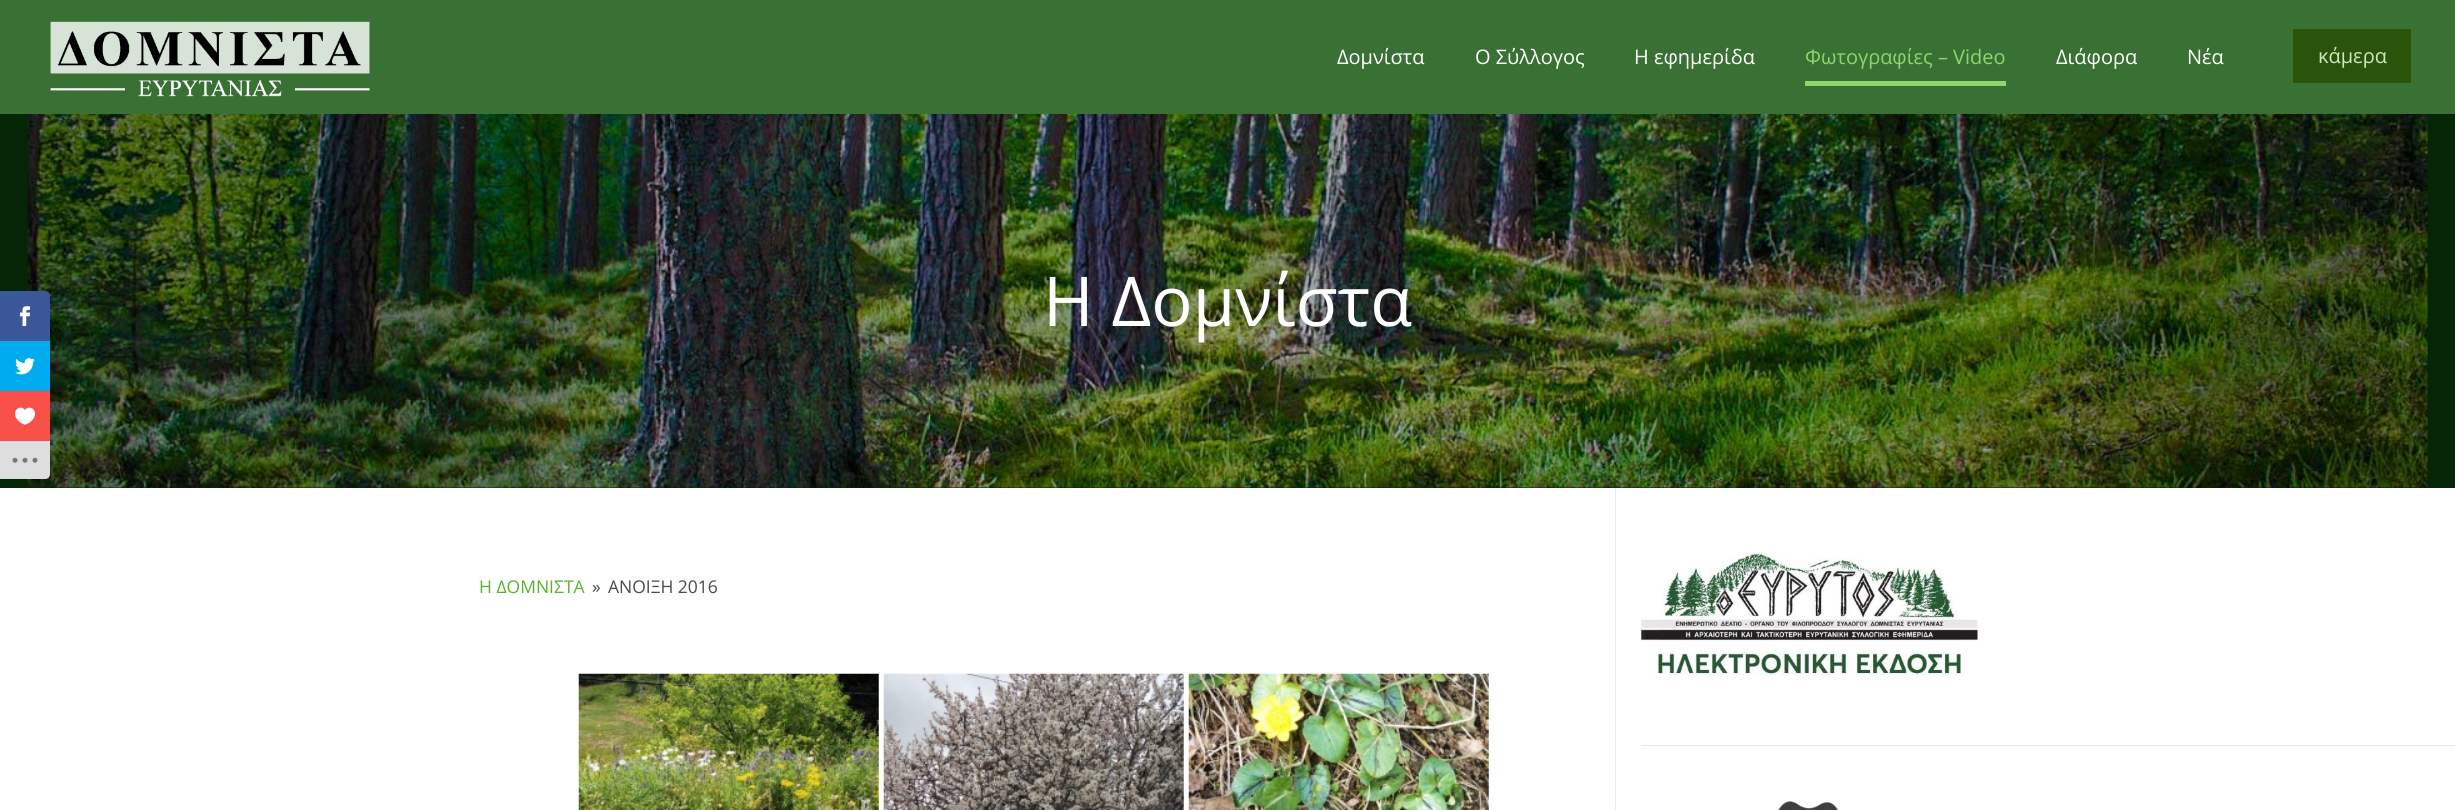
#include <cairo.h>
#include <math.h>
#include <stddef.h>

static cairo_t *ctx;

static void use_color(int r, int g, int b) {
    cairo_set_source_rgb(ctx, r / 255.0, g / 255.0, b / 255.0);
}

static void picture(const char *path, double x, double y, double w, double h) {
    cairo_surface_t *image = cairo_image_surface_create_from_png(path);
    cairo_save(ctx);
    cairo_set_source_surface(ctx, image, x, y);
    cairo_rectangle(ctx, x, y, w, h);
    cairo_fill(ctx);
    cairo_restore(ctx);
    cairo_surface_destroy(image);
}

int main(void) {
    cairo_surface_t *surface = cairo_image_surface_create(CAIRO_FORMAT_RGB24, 2455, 810);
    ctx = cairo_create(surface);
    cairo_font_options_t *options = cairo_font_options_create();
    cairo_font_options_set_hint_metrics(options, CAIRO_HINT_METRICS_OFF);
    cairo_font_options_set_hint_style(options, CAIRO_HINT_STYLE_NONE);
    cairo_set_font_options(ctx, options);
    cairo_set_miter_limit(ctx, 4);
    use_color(255, 255, 255);
    cairo_paint(ctx);
    use_color(5, 38, 6);
    cairo_rectangle(ctx, 0, 114, 2455, 374);
    cairo_fill(ctx);
    picture("img5.png", 27, 114, 2401, 374);
    use_color(58, 87, 154);
    cairo_new_path(ctx);
    cairo_move_to(ctx, 0, 291);
    cairo_line_to(ctx, 45, 291);
    cairo_curve_to(ctx, 48, 291, 50, 293, 50, 296);
    cairo_line_to(ctx, 50, 341);
    cairo_line_to(ctx, 0, 341);
    cairo_close_path(ctx);
    cairo_fill(ctx);
    picture("img1.png", 20, 306, 10, 20);
    use_color(0, 171, 240);
    cairo_rectangle(ctx, 0, 341, 50, 50);
    cairo_fill(ctx);
    picture("img2.png", 15, 358, 20, 17);
    use_color(249, 81, 73);
    cairo_rectangle(ctx, 0, 391, 50, 50);
    cairo_fill(ctx);
    picture("img3.png", 15, 407, 20, 18);
    use_color(222, 222, 222);
    cairo_new_path(ctx);
    cairo_move_to(ctx, 0, 441);
    cairo_line_to(ctx, 50, 441);
    cairo_line_to(ctx, 50, 474);
    cairo_curve_to(ctx, 50, 477, 48, 479, 45, 479);
    cairo_line_to(ctx, 0, 479);
    cairo_close_path(ctx);
    cairo_fill(ctx);
    picture("img4.png", 12, 457, 26, 6);
    use_color(56, 113, 51);
    cairo_rectangle(ctx, 0, 0, 2455, 114);
    cairo_fill(ctx);
    picture("img6.png", 50, 21, 320, 76);
    cairo_select_font_face(ctx, "Open Sans", CAIRO_FONT_SLANT_NORMAL, CAIRO_FONT_WEIGHT_NORMAL);
    cairo_set_font_size(ctx, 20);
    use_color(255, 255, 255);
    cairo_move_to(ctx, 1337, 64);
    cairo_show_text(ctx, "Δομνίστα");
    cairo_move_to(ctx, 1475, 64);
    cairo_show_text(ctx, "Ο Σύλλογος");
    cairo_move_to(ctx, 1634, 64);
    cairo_show_text(ctx, "Η εφημερίδα");
    use_color(145, 213, 110);
    cairo_move_to(ctx, 1805, 64);
    cairo_show_text(ctx, "Φωτογραφίες – Video");
    cairo_rectangle(ctx, 1805, 81, 201, 5);
    cairo_fill(ctx);
    use_color(255, 255, 255);
    cairo_move_to(ctx, 2056, 64);
    cairo_show_text(ctx, "Διάφορα");
    cairo_move_to(ctx, 2187, 64);
    cairo_show_text(ctx, "Νέα");
    use_color(42, 84, 12);
    cairo_rectangle(ctx, 2293, 29, 118, 54);
    cairo_fill(ctx);
    use_color(204, 233, 189);
    cairo_move_to(ctx, 2318, 63);
    cairo_show_text(ctx, "κάμερα");
    cairo_set_font_size(ctx, 68.75);
    use_color(255, 255, 255);
    cairo_move_to(ctx, 1043, 326);
    cairo_show_text(ctx, "Η Δομνίστα");
    cairo_set_font_size(ctx, 17.5);
    use_color(88, 179, 43);
    cairo_move_to(ctx, 479, 593);
    cairo_show_text(ctx, "Η ΔΟΜΝΙΣΤΑ");
    use_color(74, 74, 74);
    cairo_move_to(ctx, 592, 593);
    cairo_show_text(ctx, "»");
    cairo_move_to(ctx, 608, 593);
    cairo_show_text(ctx, "ΑΝΟΙΞΗ 2016");
    picture("img7.png", 578, 673, 301, 137);
    picture("img8.png", 883, 673, 301, 137);
    picture("img9.png", 1188, 673, 301, 137);
    use_color(235, 235, 235);
    cairo_rectangle(ctx, 1615, 488, 1, 322);
    cairo_fill(ctx);
    picture("img10.png", 1641, 552, 337, 123);
    use_color(233, 233, 233);
    cairo_rectangle(ctx, 1641, 745, 814, 1);
    cairo_fill(ctx);
    picture("img11.png", 1778, 801, 61, 9);
    cairo_surface_write_to_png(surface, "result.png");
    cairo_font_options_destroy(options);
    cairo_destroy(ctx);
    cairo_surface_destroy(surface);
    return 0;
}
